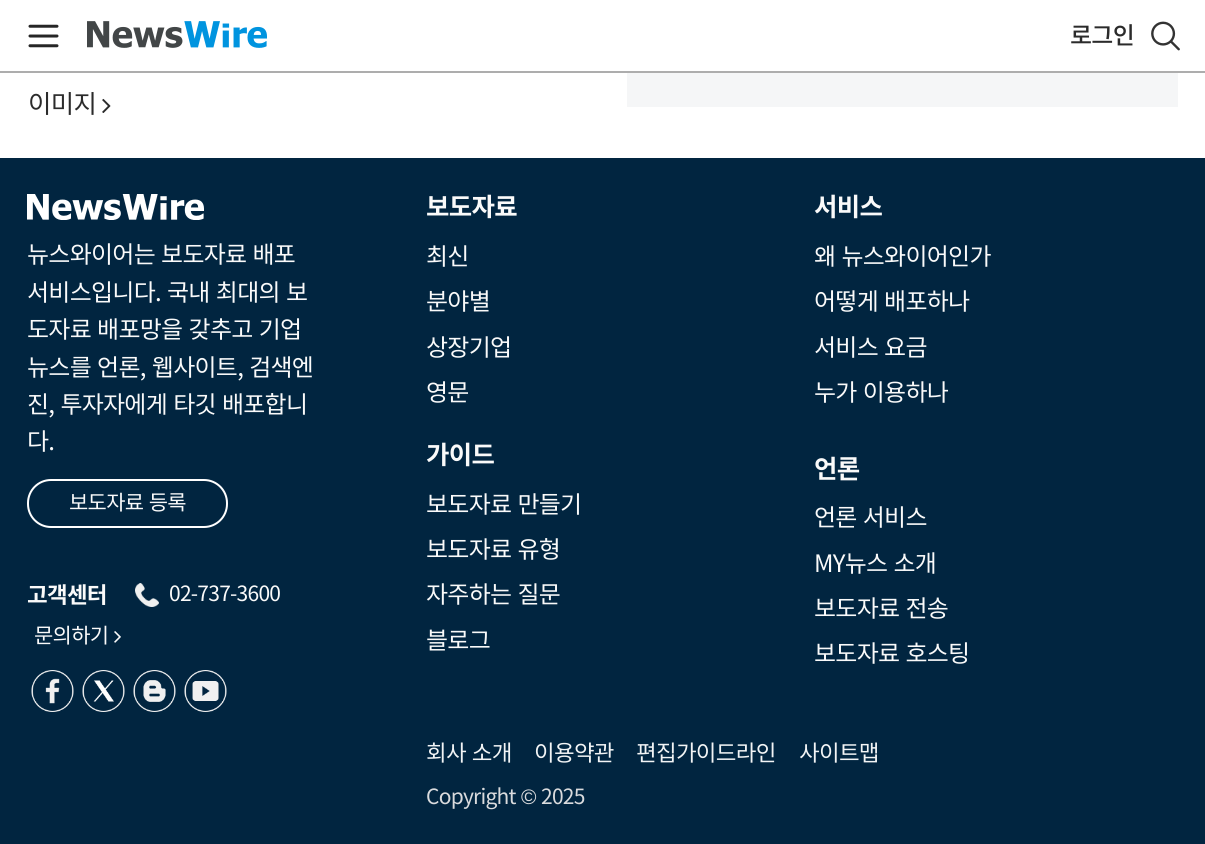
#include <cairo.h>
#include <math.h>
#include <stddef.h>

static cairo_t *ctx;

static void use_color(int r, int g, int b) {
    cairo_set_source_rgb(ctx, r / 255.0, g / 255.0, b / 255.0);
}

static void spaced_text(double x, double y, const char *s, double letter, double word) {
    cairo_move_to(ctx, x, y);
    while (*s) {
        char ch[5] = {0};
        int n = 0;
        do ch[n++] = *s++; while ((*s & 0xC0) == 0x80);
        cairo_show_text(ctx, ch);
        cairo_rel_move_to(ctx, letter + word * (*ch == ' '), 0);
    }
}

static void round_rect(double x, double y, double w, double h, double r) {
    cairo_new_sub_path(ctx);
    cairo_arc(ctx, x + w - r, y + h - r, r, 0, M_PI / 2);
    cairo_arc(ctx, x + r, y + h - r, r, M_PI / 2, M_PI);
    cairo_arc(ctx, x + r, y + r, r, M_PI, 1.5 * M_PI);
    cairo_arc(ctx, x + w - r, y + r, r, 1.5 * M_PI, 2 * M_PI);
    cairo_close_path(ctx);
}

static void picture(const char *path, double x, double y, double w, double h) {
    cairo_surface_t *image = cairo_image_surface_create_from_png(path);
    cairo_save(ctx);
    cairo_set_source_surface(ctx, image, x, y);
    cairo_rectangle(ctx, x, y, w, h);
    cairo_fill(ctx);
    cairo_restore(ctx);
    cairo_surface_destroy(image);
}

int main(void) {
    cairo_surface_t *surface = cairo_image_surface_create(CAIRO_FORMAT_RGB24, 1205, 844);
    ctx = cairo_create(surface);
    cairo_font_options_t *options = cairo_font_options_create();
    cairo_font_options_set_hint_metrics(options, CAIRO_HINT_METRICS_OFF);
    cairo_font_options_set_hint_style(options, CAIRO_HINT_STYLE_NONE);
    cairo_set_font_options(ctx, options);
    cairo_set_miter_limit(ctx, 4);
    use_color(255, 255, 255);
    cairo_paint(ctx);
    use_color(173, 173, 173);
    cairo_rectangle(ctx, 0, 71, 1205, 2);
    cairo_fill(ctx);
    picture("img1.png", 28, 24, 31, 24);
    picture("img2.png", 87, 21, 180, 27);
    cairo_select_font_face(ctx, "Noto Sans KR Medium", CAIRO_FONT_SLANT_NORMAL, CAIRO_FONT_WEIGHT_NORMAL);
    cairo_set_font_size(ctx, 24);
    use_color(43, 43, 43);
    spaced_text(1070, 44, "로그인", -0.75, 0);
    picture("img3.png", 1151, 21, 29, 30);
    cairo_select_font_face(ctx, "Noto Sans KR", CAIRO_FONT_SLANT_NORMAL, CAIRO_FONT_WEIGHT_NORMAL);
    cairo_set_font_size(ctx, 25.5);
    spaced_text(28, 113, "이미지", -0.75, 0);
    picture("img4.png", 102, 98, 9, 15);
    use_color(245, 246, 247);
    cairo_rectangle(ctx, 627, 73, 551, 34);
    cairo_fill(ctx);
    use_color(1, 37, 64);
    cairo_rectangle(ctx, 0, 158, 1205, 686);
    cairo_fill(ctx);
    picture("img5.png", 27, 194, 177, 26);
    cairo_set_font_size(ctx, 24);
    use_color(250, 250, 250);
    spaced_text(27, 263, "뉴스와이어는 보도자료 배포", -0.75, 1.5);
    spaced_text(27, 301, "서비스입니다. 국내 최대의 보", -0.75, 1.5);
    spaced_text(27, 338, "도자료 배포망을 갖추고 기업", -0.75, 1.5);
    spaced_text(27, 376, "뉴스를 언론, 웹사이트, 검색엔", -0.75, 1.5);
    spaced_text(27, 413, "진, 투자자에게 타깃 배포합니", -0.75, 1.5);
    spaced_text(27, 450, "다.", -0.75, 0);
    round_rect(28, 480, 199, 47, 23);
    use_color(255, 255, 255);
    cairo_stroke(ctx);
    cairo_set_font_size(ctx, 21);
    use_color(250, 250, 250);
    spaced_text(69, 510, "보도자료 등록", -0.75, 1.5);
    cairo_select_font_face(ctx, "Noto Sans KR", CAIRO_FONT_SLANT_NORMAL, CAIRO_FONT_WEIGHT_BOLD);
    cairo_set_font_size(ctx, 22.5);
    spaced_text(27, 603, "고객센터", -0.75, 0);
    picture("img6.png", 135, 583, 24, 24);
    cairo_select_font_face(ctx, "Noto Sans KR", CAIRO_FONT_SLANT_NORMAL, CAIRO_FONT_WEIGHT_NORMAL);
    cairo_set_font_size(ctx, 21);
    spaced_text(169, 601, "02-737-3600", -0.75, 0);
    spaced_text(34, 643, "문의하기", -0.75, 0);
    picture("img7.png", 114, 631, 7, 12);
    picture("img8.png", 31, 670, 43, 42);
    picture("img9.png", 82, 670, 43, 42);
    picture("img10.png", 133, 670, 43, 42);
    picture("img11.png", 184, 670, 43, 42);
    cairo_select_font_face(ctx, "Noto Sans KR", CAIRO_FONT_SLANT_NORMAL, CAIRO_FONT_WEIGHT_BOLD);
    cairo_set_font_size(ctx, 25.5);
    spaced_text(426, 216, "보도자료", -0.75, 0);
    cairo_select_font_face(ctx, "Noto Sans KR", CAIRO_FONT_SLANT_NORMAL, CAIRO_FONT_WEIGHT_NORMAL);
    cairo_set_font_size(ctx, 24);
    spaced_text(426, 265, "최신", -0.75, 0);
    spaced_text(426, 310, "분야별", -0.75, 0);
    spaced_text(426, 356, "상장기업", -0.75, 0);
    spaced_text(426, 401, "영문", -0.75, 0);
    cairo_select_font_face(ctx, "Noto Sans KR", CAIRO_FONT_SLANT_NORMAL, CAIRO_FONT_WEIGHT_BOLD);
    cairo_set_font_size(ctx, 25.5);
    spaced_text(814, 216, "서비스", -0.75, 0);
    cairo_select_font_face(ctx, "Noto Sans KR", CAIRO_FONT_SLANT_NORMAL, CAIRO_FONT_WEIGHT_NORMAL);
    cairo_set_font_size(ctx, 24);
    spaced_text(814, 265, "왜 뉴스와이어인가", -0.75, 1.5);
    spaced_text(814, 310, "어떻게 배포하나", -0.75, 1.5);
    spaced_text(814, 356, "서비스 요금", -0.75, 1.5);
    spaced_text(814, 401, "누가 이용하나", -0.75, 1.5);
    cairo_select_font_face(ctx, "Noto Sans KR", CAIRO_FONT_SLANT_NORMAL, CAIRO_FONT_WEIGHT_BOLD);
    cairo_set_font_size(ctx, 25.5);
    spaced_text(426, 464, "가이드", -0.75, 0);
    cairo_select_font_face(ctx, "Noto Sans KR", CAIRO_FONT_SLANT_NORMAL, CAIRO_FONT_WEIGHT_NORMAL);
    cairo_set_font_size(ctx, 24);
    spaced_text(426, 513, "보도자료 만들기", -0.75, 1.5);
    spaced_text(426, 558, "보도자료 유형", -0.75, 1.5);
    spaced_text(426, 603, "자주하는 질문", -0.75, 1.5);
    spaced_text(426, 649, "블로그", -0.75, 0);
    cairo_select_font_face(ctx, "Noto Sans KR", CAIRO_FONT_SLANT_NORMAL, CAIRO_FONT_WEIGHT_BOLD);
    cairo_set_font_size(ctx, 25.5);
    spaced_text(814, 478, "언론", -0.75, 0);
    cairo_select_font_face(ctx, "Noto Sans KR", CAIRO_FONT_SLANT_NORMAL, CAIRO_FONT_WEIGHT_NORMAL);
    cairo_set_font_size(ctx, 24);
    spaced_text(814, 526, "언론 서비스", -0.75, 1.5);
    spaced_text(814, 572, "MY뉴스 소개", -0.75, 1.5);
    spaced_text(814, 617, "보도자료 전송", -0.75, 1.5);
    spaced_text(814, 662, "보도자료 호스팅", -0.75, 1.5);
    cairo_set_font_size(ctx, 22.5);
    use_color(242, 244, 245);
    spaced_text(426, 761, "회사 소개", -0.75, 1.5);
    spaced_text(534, 761, "이용약관", -0.75, 0);
    spaced_text(636, 761, "편집가이드라인", -0.75, 0);
    spaced_text(799, 761, "사이트맵", -0.75, 0);
    cairo_set_font_size(ctx, 21);
    use_color(218, 219, 221);
    spaced_text(426, 804, "Copyright", -0.75, 0);
    cairo_select_font_face(ctx, "Liberation Sans", CAIRO_FONT_SLANT_NORMAL, CAIRO_FONT_WEIGHT_NORMAL);
    spaced_text(521, 804, "©", -0.75, 0);
    cairo_select_font_face(ctx, "Noto Sans KR", CAIRO_FONT_SLANT_NORMAL, CAIRO_FONT_WEIGHT_NORMAL);
    spaced_text(541, 804, "2025", -0.75, 0);
    cairo_surface_write_to_png(surface, "result.png");
    cairo_font_options_destroy(options);
    cairo_destroy(ctx);
    cairo_surface_destroy(surface);
    return 0;
}
